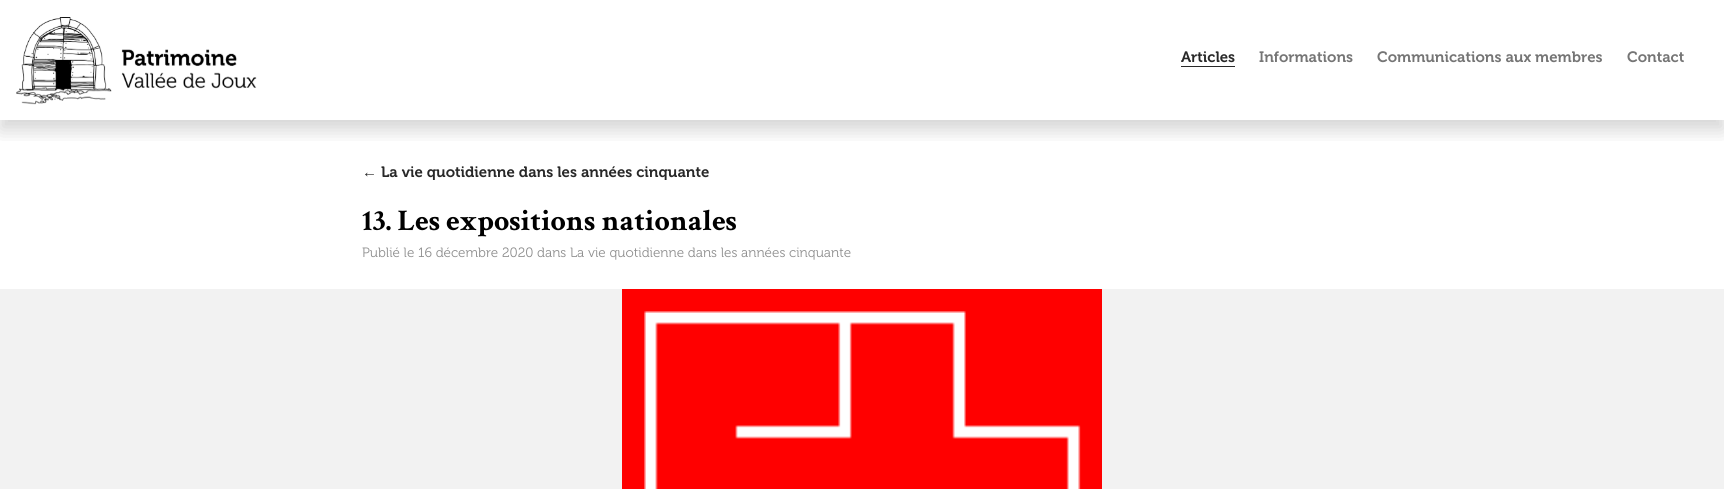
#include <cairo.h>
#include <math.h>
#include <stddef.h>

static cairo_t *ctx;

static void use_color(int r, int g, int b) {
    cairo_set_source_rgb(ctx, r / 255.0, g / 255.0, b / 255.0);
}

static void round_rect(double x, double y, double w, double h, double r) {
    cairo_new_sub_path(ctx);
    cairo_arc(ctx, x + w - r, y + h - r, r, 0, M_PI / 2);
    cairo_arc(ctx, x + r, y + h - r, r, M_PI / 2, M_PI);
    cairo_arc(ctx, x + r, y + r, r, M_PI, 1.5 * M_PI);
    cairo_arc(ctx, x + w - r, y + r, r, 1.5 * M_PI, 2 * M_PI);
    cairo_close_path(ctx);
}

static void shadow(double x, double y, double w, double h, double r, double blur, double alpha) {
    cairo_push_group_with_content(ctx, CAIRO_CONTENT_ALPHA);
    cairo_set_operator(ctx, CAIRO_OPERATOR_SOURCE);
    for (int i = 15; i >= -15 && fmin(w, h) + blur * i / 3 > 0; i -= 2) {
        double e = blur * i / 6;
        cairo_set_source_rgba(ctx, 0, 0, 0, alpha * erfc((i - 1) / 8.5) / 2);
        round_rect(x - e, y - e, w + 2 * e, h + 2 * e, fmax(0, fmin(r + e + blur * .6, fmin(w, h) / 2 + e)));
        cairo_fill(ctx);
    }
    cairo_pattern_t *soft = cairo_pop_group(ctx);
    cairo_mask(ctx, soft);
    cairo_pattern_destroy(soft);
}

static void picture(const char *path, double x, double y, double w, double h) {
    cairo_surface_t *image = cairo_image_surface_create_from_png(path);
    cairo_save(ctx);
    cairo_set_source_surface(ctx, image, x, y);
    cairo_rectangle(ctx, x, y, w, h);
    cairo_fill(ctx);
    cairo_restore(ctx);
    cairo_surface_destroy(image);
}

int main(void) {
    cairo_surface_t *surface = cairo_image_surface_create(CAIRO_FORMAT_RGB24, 1724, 489);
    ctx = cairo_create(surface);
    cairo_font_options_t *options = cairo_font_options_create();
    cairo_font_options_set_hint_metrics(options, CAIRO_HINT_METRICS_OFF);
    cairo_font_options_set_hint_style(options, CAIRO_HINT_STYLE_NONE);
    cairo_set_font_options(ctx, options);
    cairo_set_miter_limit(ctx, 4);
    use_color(255, 255, 255);
    cairo_paint(ctx);
    cairo_save(ctx);
    cairo_rectangle(ctx, 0, 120, 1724, 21);
    cairo_clip(ctx);
    use_color(0, 0, 0);
    shadow(0, 10, 1724, 120, 0, 9.5, 0.17);
    cairo_restore(ctx);
    picture("img1.png", 16, 17, 241, 88);
    cairo_select_font_face(ctx, "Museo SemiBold", CAIRO_FONT_SLANT_NORMAL, CAIRO_FONT_WEIGHT_NORMAL);
    cairo_set_font_size(ctx, 15);
    use_color(40, 40, 40);
    cairo_move_to(ctx, 1181, 62);
    cairo_show_text(ctx, "Articles");
    cairo_rectangle(ctx, 1181, 66, 54, 1);
    cairo_fill(ctx);
    use_color(117, 117, 117);
    cairo_move_to(ctx, 1259, 62);
    cairo_show_text(ctx, "Informations");
    cairo_move_to(ctx, 1377, 62);
    cairo_show_text(ctx, "Communications aux membres");
    cairo_move_to(ctx, 1627, 62);
    cairo_show_text(ctx, "Contact");
    cairo_select_font_face(ctx, "Liberation Sans", CAIRO_FONT_SLANT_NORMAL, CAIRO_FONT_WEIGHT_BOLD);
    use_color(40, 40, 40);
    cairo_move_to(ctx, 362, 177);
    cairo_show_text(ctx, "←");
    cairo_select_font_face(ctx, "Museo SemiBold", CAIRO_FONT_SLANT_NORMAL, CAIRO_FONT_WEIGHT_NORMAL);
    cairo_move_to(ctx, 381, 177);
    cairo_show_text(ctx, "La vie quotidienne dans les années cinquante");
    cairo_select_font_face(ctx, "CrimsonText", CAIRO_FONT_SLANT_NORMAL, CAIRO_FONT_WEIGHT_BOLD);
    cairo_set_font_size(ctx, 30);
    use_color(0, 0, 0);
    cairo_move_to(ctx, 362, 230);
    cairo_show_text(ctx, "13. Les expositions nationales");
    cairo_select_font_face(ctx, "Museo Light", CAIRO_FONT_SLANT_NORMAL, CAIRO_FONT_WEIGHT_NORMAL);
    cairo_set_font_size(ctx, 13.5);
    use_color(142, 142, 142);
    cairo_move_to(ctx, 362, 257);
    cairo_show_text(ctx, "Publié le 16 décembre 2020 dans La vie quotidienne dans les années cinquante");
    use_color(242, 242, 242);
    cairo_rectangle(ctx, 0, 289, 1724, 200);
    cairo_fill(ctx);
    picture("img2.png", 622, 289, 480, 200);
    cairo_surface_write_to_png(surface, "result.png");
    cairo_font_options_destroy(options);
    cairo_destroy(ctx);
    cairo_surface_destroy(surface);
    return 0;
}
